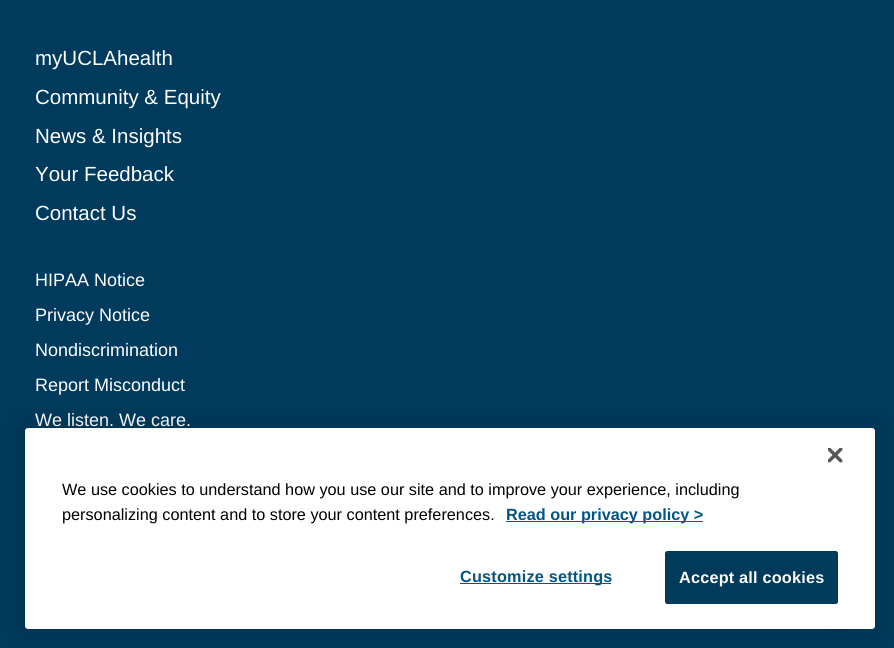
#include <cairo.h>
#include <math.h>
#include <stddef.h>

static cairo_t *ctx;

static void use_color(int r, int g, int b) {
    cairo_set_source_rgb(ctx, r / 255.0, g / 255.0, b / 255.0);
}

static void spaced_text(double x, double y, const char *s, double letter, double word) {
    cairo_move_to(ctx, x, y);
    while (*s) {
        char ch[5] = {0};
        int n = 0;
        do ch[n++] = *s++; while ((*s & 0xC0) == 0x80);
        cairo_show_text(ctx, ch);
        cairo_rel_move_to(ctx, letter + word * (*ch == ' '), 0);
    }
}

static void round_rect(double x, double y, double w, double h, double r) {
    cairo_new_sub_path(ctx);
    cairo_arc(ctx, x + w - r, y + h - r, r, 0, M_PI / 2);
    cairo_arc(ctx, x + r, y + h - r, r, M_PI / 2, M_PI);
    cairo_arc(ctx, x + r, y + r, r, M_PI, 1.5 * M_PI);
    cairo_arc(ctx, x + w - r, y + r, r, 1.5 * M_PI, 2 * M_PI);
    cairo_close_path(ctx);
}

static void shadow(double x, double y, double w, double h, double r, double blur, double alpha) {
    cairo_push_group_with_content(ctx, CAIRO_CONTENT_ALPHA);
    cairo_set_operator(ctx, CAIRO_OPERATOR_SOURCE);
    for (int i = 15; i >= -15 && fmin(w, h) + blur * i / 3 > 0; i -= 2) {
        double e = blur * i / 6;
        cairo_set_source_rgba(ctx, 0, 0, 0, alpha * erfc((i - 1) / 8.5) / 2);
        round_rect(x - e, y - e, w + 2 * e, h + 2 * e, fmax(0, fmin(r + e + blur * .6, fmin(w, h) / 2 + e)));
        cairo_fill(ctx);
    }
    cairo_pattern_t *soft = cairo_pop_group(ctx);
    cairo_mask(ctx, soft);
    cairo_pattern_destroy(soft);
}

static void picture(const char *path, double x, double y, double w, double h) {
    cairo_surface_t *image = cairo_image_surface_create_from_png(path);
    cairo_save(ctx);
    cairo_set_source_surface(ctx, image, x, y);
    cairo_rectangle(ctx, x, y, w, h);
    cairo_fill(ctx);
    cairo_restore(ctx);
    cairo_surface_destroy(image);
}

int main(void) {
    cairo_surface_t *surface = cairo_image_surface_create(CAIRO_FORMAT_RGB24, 894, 648);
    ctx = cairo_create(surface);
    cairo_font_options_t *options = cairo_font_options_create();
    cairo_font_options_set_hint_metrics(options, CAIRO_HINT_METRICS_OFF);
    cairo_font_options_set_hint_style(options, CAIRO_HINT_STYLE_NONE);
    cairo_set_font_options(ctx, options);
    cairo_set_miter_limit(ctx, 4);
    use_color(0, 58, 92);
    cairo_paint(ctx);
    cairo_select_font_face(ctx, "Liberation Sans", CAIRO_FONT_SLANT_NORMAL, CAIRO_FONT_WEIGHT_NORMAL);
    cairo_set_font_size(ctx, 20.5);
    use_color(255, 255, 255);
    cairo_move_to(ctx, 35, 65);
    cairo_show_text(ctx, "myUCLAhealth");
    cairo_move_to(ctx, 35, 104);
    cairo_show_text(ctx, "Community & Equity");
    cairo_move_to(ctx, 35, 143);
    cairo_show_text(ctx, "News & Insights");
    cairo_move_to(ctx, 35, 181);
    cairo_show_text(ctx, "Your Feedback");
    cairo_move_to(ctx, 35, 220);
    cairo_show_text(ctx, "Contact Us");
    cairo_set_font_size(ctx, 18);
    cairo_move_to(ctx, 35, 286);
    cairo_show_text(ctx, "HIPAA Notice");
    cairo_move_to(ctx, 35, 321);
    cairo_show_text(ctx, "Privacy Notice");
    cairo_move_to(ctx, 35, 356);
    cairo_show_text(ctx, "Nondiscrimination");
    cairo_move_to(ctx, 35, 391);
    cairo_show_text(ctx, "Report Misconduct");
    cairo_move_to(ctx, 35, 426);
    cairo_show_text(ctx, "We listen. We care.");
    use_color(0, 0, 0);
    shadow(808, 566, 62, 63, 31, 2.5, 0.25);
    shadow(25, 428, 850, 201, 3, 11, 0.2);
    use_color(255, 255, 255);
    round_rect(25, 428, 850, 201, 3);
    cairo_fill(ctx);
    picture("img1.png", 828, 448, 15, 15);
    cairo_set_font_size(ctx, 16.25);
    use_color(0, 0, 0);
    cairo_move_to(ctx, 62, 495);
    cairo_show_text(ctx, "We use cookies to understand how you use our site and to improve your experience, including");
    cairo_move_to(ctx, 62, 520);
    cairo_show_text(ctx, "personalizing content and to store your content preferences.");
    use_color(0, 85, 135);
    cairo_rectangle(ctx, 506, 521, 197, 1);
    cairo_fill(ctx);
    cairo_select_font_face(ctx, "Liberation Sans", CAIRO_FONT_SLANT_NORMAL, CAIRO_FONT_WEIGHT_BOLD);
    cairo_move_to(ctx, 506, 520);
    cairo_show_text(ctx, "Read our privacy policy >");
    cairo_rectangle(ctx, 460, 583, 151, 1);
    cairo_fill(ctx);
    spaced_text(460, 582, "Customize settings", 0.2, 0);
    use_color(0, 59, 92);
    round_rect(665.5, 551.5, 172, 52, 2);
    cairo_fill_preserve(ctx);
    cairo_set_line_width(ctx, 1);
    cairo_stroke(ctx);
    use_color(255, 255, 255);
    spaced_text(679, 583, "Accept all cookies", 0.2, 0);
    cairo_surface_write_to_png(surface, "result.png");
    cairo_font_options_destroy(options);
    cairo_destroy(ctx);
    cairo_surface_destroy(surface);
    return 0;
}
